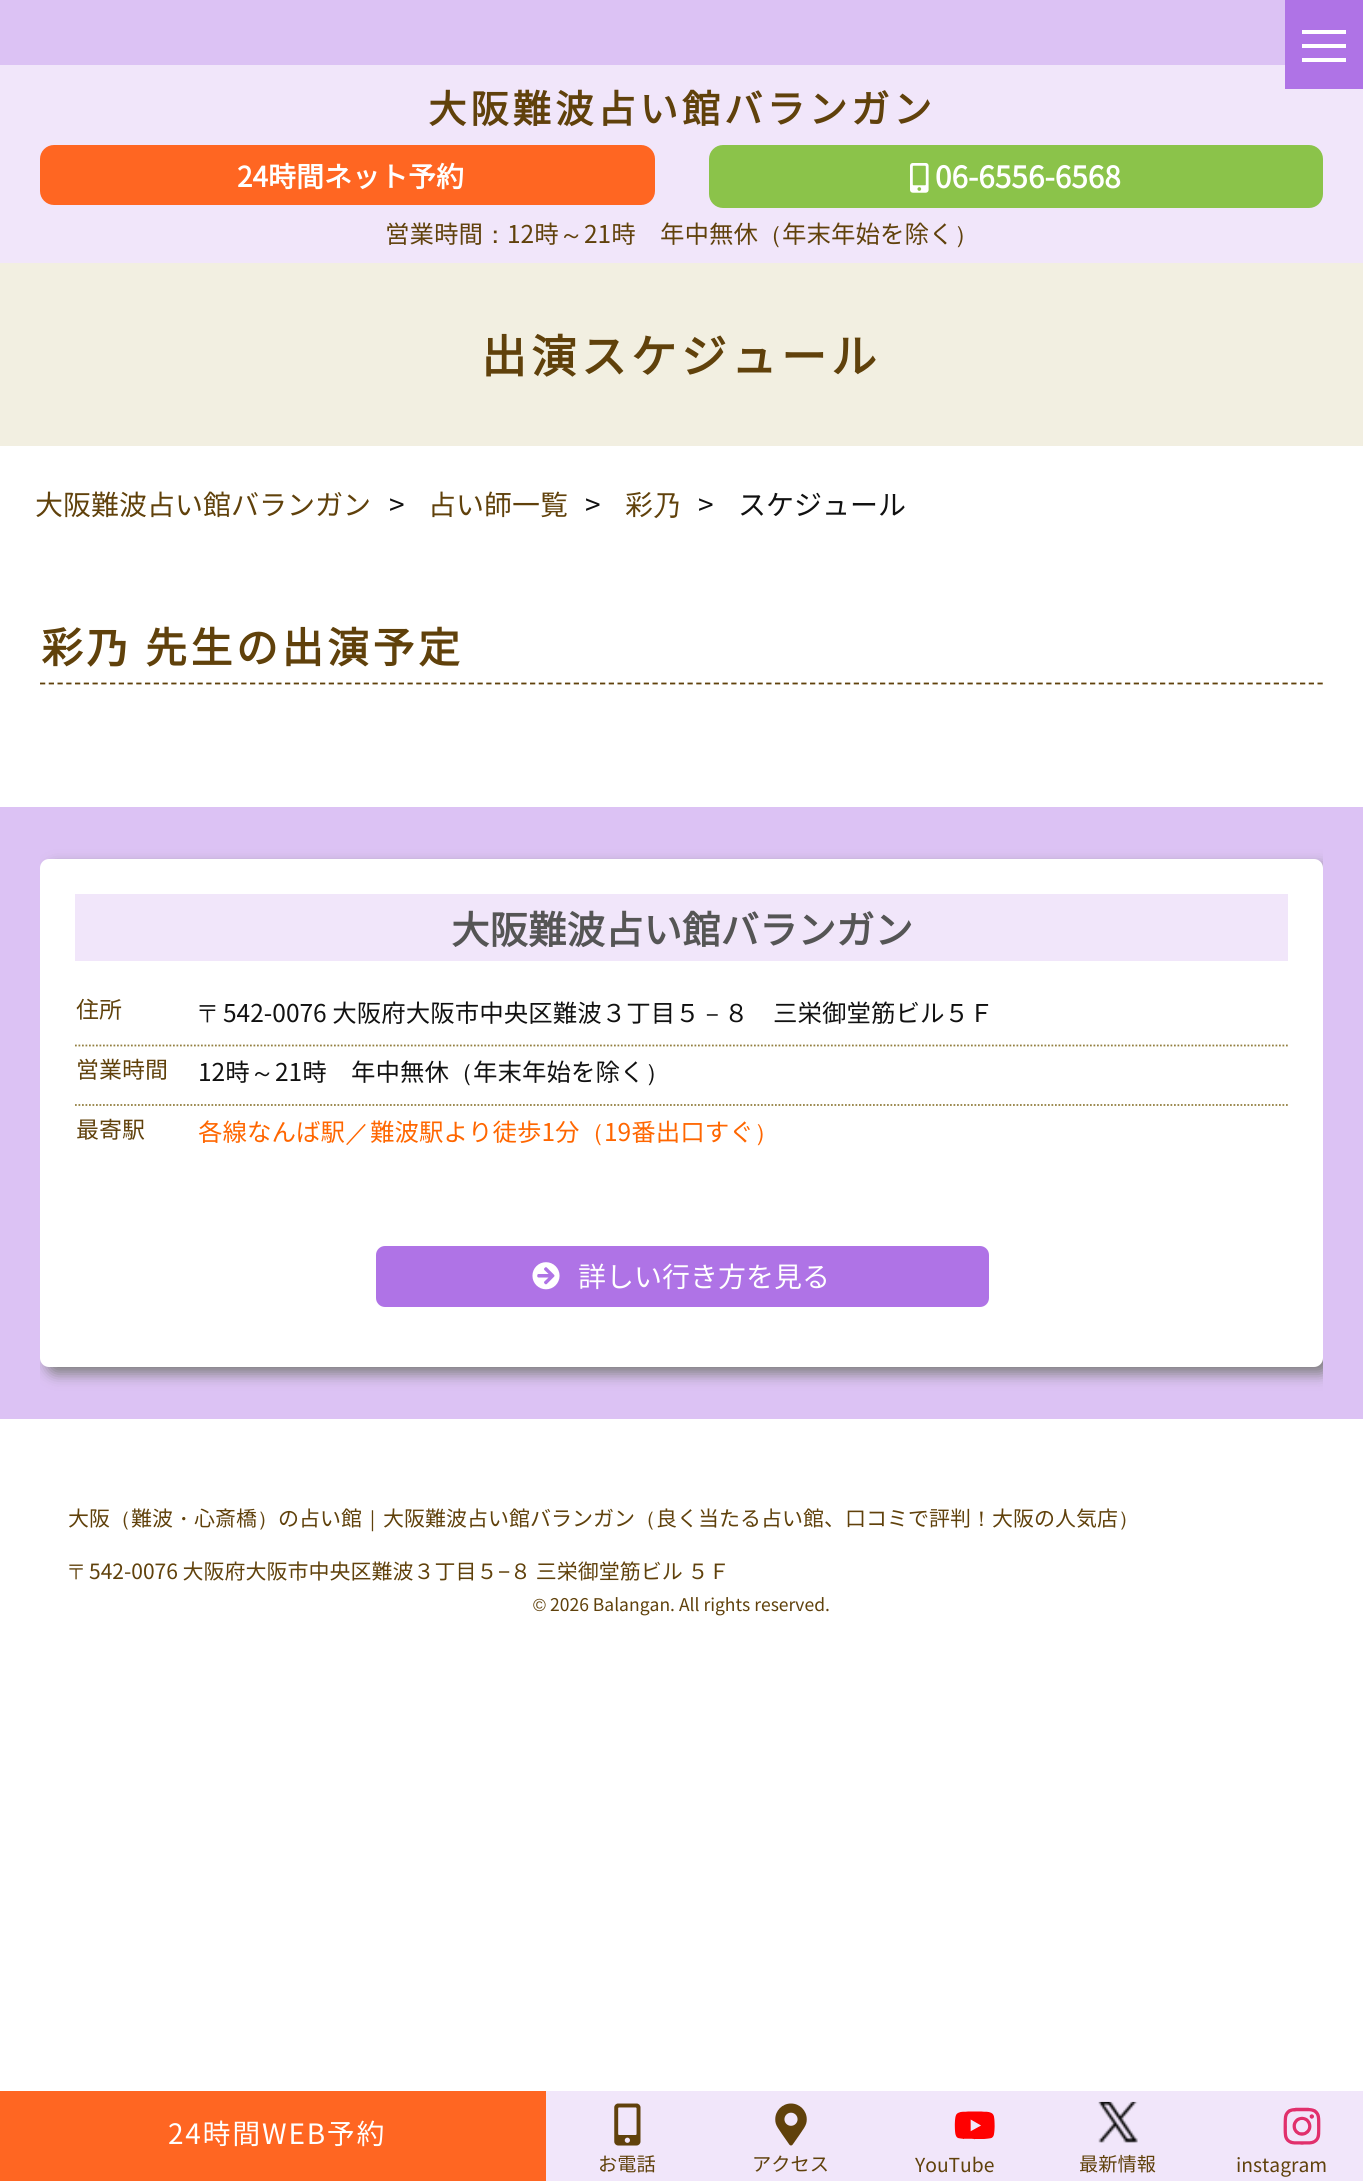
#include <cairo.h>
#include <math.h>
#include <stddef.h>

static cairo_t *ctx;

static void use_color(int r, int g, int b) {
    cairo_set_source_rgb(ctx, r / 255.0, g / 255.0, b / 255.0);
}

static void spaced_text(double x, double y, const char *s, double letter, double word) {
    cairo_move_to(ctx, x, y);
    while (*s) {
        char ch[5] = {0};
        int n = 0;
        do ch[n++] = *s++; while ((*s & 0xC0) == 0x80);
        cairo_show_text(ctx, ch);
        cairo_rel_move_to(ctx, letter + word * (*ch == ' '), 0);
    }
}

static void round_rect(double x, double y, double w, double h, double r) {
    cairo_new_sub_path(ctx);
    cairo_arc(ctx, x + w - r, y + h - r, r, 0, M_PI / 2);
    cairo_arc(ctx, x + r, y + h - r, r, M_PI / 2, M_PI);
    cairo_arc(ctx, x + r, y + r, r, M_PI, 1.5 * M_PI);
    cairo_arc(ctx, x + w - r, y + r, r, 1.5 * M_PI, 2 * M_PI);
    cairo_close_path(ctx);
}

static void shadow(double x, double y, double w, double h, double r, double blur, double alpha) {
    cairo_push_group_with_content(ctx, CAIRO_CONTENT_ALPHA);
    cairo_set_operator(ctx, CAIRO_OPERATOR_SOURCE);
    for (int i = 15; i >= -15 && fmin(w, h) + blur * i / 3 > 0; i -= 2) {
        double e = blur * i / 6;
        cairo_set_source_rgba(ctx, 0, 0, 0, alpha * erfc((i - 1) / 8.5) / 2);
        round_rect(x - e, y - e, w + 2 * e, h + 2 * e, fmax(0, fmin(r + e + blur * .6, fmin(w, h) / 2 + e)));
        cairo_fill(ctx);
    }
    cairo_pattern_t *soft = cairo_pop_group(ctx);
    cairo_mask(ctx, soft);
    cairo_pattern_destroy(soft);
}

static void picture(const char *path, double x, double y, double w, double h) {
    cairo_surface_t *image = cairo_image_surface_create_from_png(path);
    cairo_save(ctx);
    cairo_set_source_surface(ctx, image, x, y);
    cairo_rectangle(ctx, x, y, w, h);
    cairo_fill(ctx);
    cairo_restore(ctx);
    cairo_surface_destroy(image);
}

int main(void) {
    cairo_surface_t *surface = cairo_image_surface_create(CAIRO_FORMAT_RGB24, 1363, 2181);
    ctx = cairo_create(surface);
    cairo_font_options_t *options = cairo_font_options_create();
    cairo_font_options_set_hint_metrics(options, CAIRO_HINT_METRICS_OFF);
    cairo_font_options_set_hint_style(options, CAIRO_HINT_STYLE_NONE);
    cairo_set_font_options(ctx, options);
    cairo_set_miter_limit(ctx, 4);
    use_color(255, 255, 255);
    cairo_paint(ctx);
    use_color(241, 230, 250);
    cairo_rectangle(ctx, 0, 65, 1363, 198);
    cairo_fill(ctx);
    use_color(175, 115, 230);
    cairo_rectangle(ctx, 1285, 0, 78, 89);
    cairo_fill(ctx);
    use_color(255, 255, 255);
    cairo_rectangle(ctx, 1302, 30, 44, 4);
    cairo_fill(ctx);
    cairo_rectangle(ctx, 1302, 44, 44, 4);
    cairo_fill(ctx);
    cairo_rectangle(ctx, 1302, 58, 44, 4);
    cairo_fill(ctx);
    use_color(220, 194, 244);
    cairo_rectangle(ctx, 0, 0, 1285, 65);
    cairo_fill(ctx);
    cairo_select_font_face(ctx, "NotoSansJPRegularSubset", CAIRO_FONT_SLANT_NORMAL, CAIRO_FONT_WEIGHT_BOLD);
    cairo_set_font_size(ctx, 38.5);
    use_color(96, 65, 11);
    spaced_text(428, 123, "大阪難波占い館バランガン", 3.8, 0);
    use_color(255, 102, 34);
    round_rect(40, 145, 615, 60, 14);
    cairo_fill(ctx);
    cairo_set_font_size(ctx, 28);
    use_color(255, 255, 255);
    cairo_move_to(ctx, 237, 187);
    cairo_show_text(ctx, "24時間ネット予約");
    use_color(139, 195, 74);
    round_rect(709, 145, 614, 63, 14);
    cairo_fill(ctx);
    picture("img1.png", 910, 163, 19, 30);
    cairo_set_font_size(ctx, 29.75);
    use_color(255, 255, 255);
    cairo_move_to(ctx, 935, 188);
    cairo_show_text(ctx, "06-6556-6568");
    cairo_select_font_face(ctx, "NotoSansJPRegularSubset", CAIRO_FONT_SLANT_NORMAL, CAIRO_FONT_WEIGHT_NORMAL);
    cairo_set_font_size(ctx, 24.5);
    use_color(96, 65, 11);
    cairo_move_to(ctx, 385, 243);
    cairo_show_text(ctx, "営業時間");
    cairo_select_font_face(ctx, "WenQuanYi Zen Hei Medium", CAIRO_FONT_SLANT_NORMAL, CAIRO_FONT_WEIGHT_NORMAL);
    cairo_move_to(ctx, 483, 243);
    cairo_show_text(ctx, "：");
    cairo_select_font_face(ctx, "NotoSansJPRegularSubset", CAIRO_FONT_SLANT_NORMAL, CAIRO_FONT_WEIGHT_NORMAL);
    cairo_move_to(ctx, 507, 243);
    cairo_show_text(ctx, "12時");
    cairo_select_font_face(ctx, "WenQuanYi Zen Hei Medium", CAIRO_FONT_SLANT_NORMAL, CAIRO_FONT_WEIGHT_NORMAL);
    cairo_move_to(ctx, 559, 243);
    cairo_show_text(ctx, "～");
    cairo_select_font_face(ctx, "NotoSansJPRegularSubset", CAIRO_FONT_SLANT_NORMAL, CAIRO_FONT_WEIGHT_NORMAL);
    cairo_move_to(ctx, 584, 243);
    cairo_show_text(ctx, "21時");
    cairo_move_to(ctx, 660, 243);
    cairo_show_text(ctx, "年中無休");
    cairo_select_font_face(ctx, "WenQuanYi Zen Hei Medium", CAIRO_FONT_SLANT_NORMAL, CAIRO_FONT_WEIGHT_NORMAL);
    cairo_move_to(ctx, 758, 243);
    cairo_show_text(ctx, "（");
    cairo_select_font_face(ctx, "NotoSansJPRegularSubset", CAIRO_FONT_SLANT_NORMAL, CAIRO_FONT_WEIGHT_NORMAL);
    cairo_move_to(ctx, 782, 243);
    cairo_show_text(ctx, "年末年始を除く");
    cairo_select_font_face(ctx, "WenQuanYi Zen Hei Medium", CAIRO_FONT_SLANT_NORMAL, CAIRO_FONT_WEIGHT_NORMAL);
    cairo_move_to(ctx, 954, 243);
    cairo_show_text(ctx, "）");
    use_color(242, 239, 225);
    cairo_rectangle(ctx, 0, 263, 1363, 183);
    cairo_fill(ctx);
    cairo_select_font_face(ctx, "NotoSansJPRegularSubset", CAIRO_FONT_SLANT_NORMAL, CAIRO_FONT_WEIGHT_BOLD);
    cairo_set_font_size(ctx, 45.5);
    use_color(96, 65, 11);
    spaced_text(481, 373, "出演スケジュール", 4.5, 0);
    cairo_select_font_face(ctx, "NotoSansJPRegularSubset", CAIRO_FONT_SLANT_NORMAL, CAIRO_FONT_WEIGHT_NORMAL);
    cairo_set_font_size(ctx, 28);
    cairo_move_to(ctx, 35, 515);
    cairo_show_text(ctx, "大阪難波占い館バランガン");
    use_color(17, 17, 17);
    cairo_move_to(ctx, 389, 515);
    cairo_show_text(ctx, ">");
    use_color(96, 65, 11);
    cairo_move_to(ctx, 428, 515);
    cairo_show_text(ctx, "占い師一覧");
    use_color(17, 17, 17);
    cairo_move_to(ctx, 585, 515);
    cairo_show_text(ctx, ">");
    use_color(96, 65, 11);
    cairo_move_to(ctx, 625, 515);
    cairo_show_text(ctx, "彩");
    cairo_select_font_face(ctx, "WenQuanYi Zen Hei Medium", CAIRO_FONT_SLANT_NORMAL, CAIRO_FONT_WEIGHT_NORMAL);
    cairo_move_to(ctx, 653, 515);
    cairo_show_text(ctx, "乃");
    cairo_select_font_face(ctx, "NotoSansJPRegularSubset", CAIRO_FONT_SLANT_NORMAL, CAIRO_FONT_WEIGHT_NORMAL);
    use_color(17, 17, 17);
    cairo_move_to(ctx, 698, 515);
    cairo_show_text(ctx, ">");
    cairo_move_to(ctx, 738, 515);
    cairo_show_text(ctx, "スケジュール");
    cairo_new_path(ctx);
    cairo_move_to(ctx, 40, 683.5);
    cairo_line_to(ctx, 1323, 683.5);
    use_color(96, 65, 11);
    cairo_set_line_width(ctx, 1.8);
    cairo_set_dash(ctx, (double[]){5.25, 3.5}, 2, 0);
    cairo_stroke(ctx);
    cairo_select_font_face(ctx, "NotoSansJPRegularSubset", CAIRO_FONT_SLANT_NORMAL, CAIRO_FONT_WEIGHT_BOLD);
    cairo_set_font_size(ctx, 42);
    spaced_text(41, 663, "彩", 3.5, 0);
    cairo_select_font_face(ctx, "Noto Sans JP SemiBold", CAIRO_FONT_SLANT_NORMAL, CAIRO_FONT_WEIGHT_NORMAL);
    spaced_text(86, 663, "乃", 3.5, 0);
    cairo_select_font_face(ctx, "NotoSansJPRegularSubset", CAIRO_FONT_SLANT_NORMAL, CAIRO_FONT_WEIGHT_BOLD);
    spaced_text(145, 663, "先生の出演予定", 3.5, 0);
    use_color(220, 194, 244);
    cairo_rectangle(ctx, 0, 807, 1363, 612);
    cairo_fill(ctx);
    cairo_save(ctx);
    cairo_rectangle(ctx, 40, 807, 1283, 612);
    cairo_clip(ctx);
    use_color(128, 128, 128);
    shadow(47, 866, 1283, 508, 9, 7, 1);
    cairo_restore(ctx);
    use_color(255, 255, 255);
    round_rect(40, 859, 1283, 508, 9);
    cairo_fill(ctx);
    use_color(241, 230, 250);
    cairo_rectangle(ctx, 75, 894, 1213, 67);
    cairo_fill(ctx);
    cairo_set_font_size(ctx, 38.5);
    use_color(85, 85, 85);
    cairo_move_to(ctx, 451, 944);
    cairo_show_text(ctx, "大阪難波占い館バランガン");
    cairo_select_font_face(ctx, "NotoSansJPRegularSubset", CAIRO_FONT_SLANT_NORMAL, CAIRO_FONT_WEIGHT_NORMAL);
    cairo_set_font_size(ctx, 23);
    use_color(96, 65, 11);
    cairo_move_to(ctx, 76, 1018);
    cairo_show_text(ctx, "住所");
    cairo_new_path(ctx);
    cairo_move_to(ctx, 75, 1045.5);
    cairo_line_to(ctx, 1288, 1045.5);
    use_color(147, 128, 65);
    cairo_set_dash(ctx, (double[]){1.75, 1.75}, 2, 0);
    cairo_stroke(ctx);
    cairo_select_font_face(ctx, "WenQuanYi Zen Hei Medium", CAIRO_FONT_SLANT_NORMAL, CAIRO_FONT_WEIGHT_NORMAL);
    cairo_set_font_size(ctx, 24.5);
    use_color(17, 17, 17);
    cairo_move_to(ctx, 198, 1022);
    cairo_show_text(ctx, "〒");
    cairo_select_font_face(ctx, "NotoSansJPRegularSubset", CAIRO_FONT_SLANT_NORMAL, CAIRO_FONT_WEIGHT_NORMAL);
    cairo_move_to(ctx, 223, 1022);
    cairo_show_text(ctx, "542-0076 大阪府大阪市中央区難波３丁目５");
    cairo_select_font_face(ctx, "WenQuanYi Zen Hei Medium", CAIRO_FONT_SLANT_NORMAL, CAIRO_FONT_WEIGHT_NORMAL);
    cairo_move_to(ctx, 700, 1022);
    cairo_show_text(ctx, "－");
    cairo_select_font_face(ctx, "NotoSansJPRegularSubset", CAIRO_FONT_SLANT_NORMAL, CAIRO_FONT_WEIGHT_NORMAL);
    cairo_move_to(ctx, 724, 1022);
    cairo_show_text(ctx, "８");
    cairo_move_to(ctx, 773, 1022);
    cairo_show_text(ctx, "三栄御堂筋ビル５Ｆ");
    cairo_set_font_size(ctx, 23);
    use_color(96, 65, 11);
    cairo_move_to(ctx, 76, 1078);
    cairo_show_text(ctx, "営業時間");
    cairo_new_path(ctx);
    cairo_move_to(ctx, 75, 1105);
    cairo_line_to(ctx, 1288, 1105);
    use_color(147, 128, 65);
    cairo_stroke(ctx);
    cairo_set_font_size(ctx, 24.5);
    use_color(17, 17, 17);
    cairo_move_to(ctx, 198, 1081);
    cairo_show_text(ctx, "12時");
    cairo_select_font_face(ctx, "WenQuanYi Zen Hei Medium", CAIRO_FONT_SLANT_NORMAL, CAIRO_FONT_WEIGHT_NORMAL);
    cairo_move_to(ctx, 250, 1081);
    cairo_show_text(ctx, "～");
    cairo_select_font_face(ctx, "NotoSansJPRegularSubset", CAIRO_FONT_SLANT_NORMAL, CAIRO_FONT_WEIGHT_NORMAL);
    cairo_move_to(ctx, 275, 1081);
    cairo_show_text(ctx, "21時");
    cairo_move_to(ctx, 351, 1081);
    cairo_show_text(ctx, "年中無休");
    cairo_select_font_face(ctx, "WenQuanYi Zen Hei Medium", CAIRO_FONT_SLANT_NORMAL, CAIRO_FONT_WEIGHT_NORMAL);
    cairo_move_to(ctx, 449, 1081);
    cairo_show_text(ctx, "（");
    cairo_select_font_face(ctx, "NotoSansJPRegularSubset", CAIRO_FONT_SLANT_NORMAL, CAIRO_FONT_WEIGHT_NORMAL);
    cairo_move_to(ctx, 473, 1081);
    cairo_show_text(ctx, "年末年始を除く");
    cairo_select_font_face(ctx, "WenQuanYi Zen Hei Medium", CAIRO_FONT_SLANT_NORMAL, CAIRO_FONT_WEIGHT_NORMAL);
    cairo_move_to(ctx, 645, 1081);
    cairo_show_text(ctx, "）");
    cairo_select_font_face(ctx, "NotoSansJPRegularSubset", CAIRO_FONT_SLANT_NORMAL, CAIRO_FONT_WEIGHT_NORMAL);
    cairo_set_font_size(ctx, 23);
    use_color(96, 65, 11);
    cairo_move_to(ctx, 76, 1138);
    cairo_show_text(ctx, "最寄駅");
    cairo_set_font_size(ctx, 24.5);
    use_color(255, 102, 0);
    cairo_move_to(ctx, 198, 1141);
    cairo_show_text(ctx, "各線なんば駅");
    cairo_select_font_face(ctx, "WenQuanYi Zen Hei Medium", CAIRO_FONT_SLANT_NORMAL, CAIRO_FONT_WEIGHT_NORMAL);
    cairo_move_to(ctx, 345, 1141);
    cairo_show_text(ctx, "／");
    cairo_select_font_face(ctx, "NotoSansJPRegularSubset", CAIRO_FONT_SLANT_NORMAL, CAIRO_FONT_WEIGHT_NORMAL);
    cairo_move_to(ctx, 370, 1141);
    cairo_show_text(ctx, "難波駅より徒歩1分");
    cairo_select_font_face(ctx, "WenQuanYi Zen Hei Medium", CAIRO_FONT_SLANT_NORMAL, CAIRO_FONT_WEIGHT_NORMAL);
    cairo_move_to(ctx, 580, 1141);
    cairo_show_text(ctx, "（");
    cairo_select_font_face(ctx, "NotoSansJPRegularSubset", CAIRO_FONT_SLANT_NORMAL, CAIRO_FONT_WEIGHT_NORMAL);
    cairo_move_to(ctx, 604, 1141);
    cairo_show_text(ctx, "19番出口すぐ");
    cairo_select_font_face(ctx, "WenQuanYi Zen Hei Medium", CAIRO_FONT_SLANT_NORMAL, CAIRO_FONT_WEIGHT_NORMAL);
    cairo_move_to(ctx, 754, 1141);
    cairo_show_text(ctx, "）");
    use_color(175, 115, 230);
    round_rect(376, 1246, 613, 61, 9);
    cairo_fill(ctx);
    picture("img2.png", 532, 1262, 28, 28);
    cairo_select_font_face(ctx, "NotoSansJPRegularSubset", CAIRO_FONT_SLANT_NORMAL, CAIRO_FONT_WEIGHT_NORMAL);
    cairo_set_font_size(ctx, 28);
    use_color(255, 255, 255);
    cairo_move_to(ctx, 578, 1287);
    cairo_show_text(ctx, "詳しい行き方を見る");
    cairo_set_font_size(ctx, 21);
    use_color(96, 65, 11);
    cairo_move_to(ctx, 68, 1526);
    cairo_show_text(ctx, "大阪");
    cairo_select_font_face(ctx, "WenQuanYi Zen Hei Medium", CAIRO_FONT_SLANT_NORMAL, CAIRO_FONT_WEIGHT_NORMAL);
    cairo_move_to(ctx, 110, 1526);
    cairo_show_text(ctx, "（");
    cairo_select_font_face(ctx, "NotoSansJPRegularSubset", CAIRO_FONT_SLANT_NORMAL, CAIRO_FONT_WEIGHT_NORMAL);
    cairo_move_to(ctx, 131, 1526);
    cairo_show_text(ctx, "難波");
    cairo_select_font_face(ctx, "WenQuanYi Zen Hei Medium", CAIRO_FONT_SLANT_NORMAL, CAIRO_FONT_WEIGHT_NORMAL);
    cairo_move_to(ctx, 173, 1526);
    cairo_show_text(ctx, "・");
    cairo_select_font_face(ctx, "NotoSansJPRegularSubset", CAIRO_FONT_SLANT_NORMAL, CAIRO_FONT_WEIGHT_NORMAL);
    cairo_move_to(ctx, 194, 1526);
    cairo_show_text(ctx, "心斎橋");
    cairo_select_font_face(ctx, "WenQuanYi Zen Hei Medium", CAIRO_FONT_SLANT_NORMAL, CAIRO_FONT_WEIGHT_NORMAL);
    cairo_move_to(ctx, 257, 1526);
    cairo_show_text(ctx, "）");
    cairo_select_font_face(ctx, "NotoSansJPRegularSubset", CAIRO_FONT_SLANT_NORMAL, CAIRO_FONT_WEIGHT_NORMAL);
    cairo_move_to(ctx, 278, 1526);
    cairo_show_text(ctx, "の占い館");
    cairo_select_font_face(ctx, "WenQuanYi Zen Hei Medium", CAIRO_FONT_SLANT_NORMAL, CAIRO_FONT_WEIGHT_NORMAL);
    cairo_move_to(ctx, 362, 1526);
    cairo_show_text(ctx, "｜");
    cairo_select_font_face(ctx, "NotoSansJPRegularSubset", CAIRO_FONT_SLANT_NORMAL, CAIRO_FONT_WEIGHT_NORMAL);
    cairo_move_to(ctx, 383, 1526);
    cairo_show_text(ctx, "大阪難波占い館バランガン");
    cairo_select_font_face(ctx, "WenQuanYi Zen Hei Medium", CAIRO_FONT_SLANT_NORMAL, CAIRO_FONT_WEIGHT_NORMAL);
    cairo_move_to(ctx, 635, 1526);
    cairo_show_text(ctx, "（");
    cairo_select_font_face(ctx, "NotoSansJPRegularSubset", CAIRO_FONT_SLANT_NORMAL, CAIRO_FONT_WEIGHT_NORMAL);
    cairo_move_to(ctx, 656, 1526);
    cairo_show_text(ctx, "良く当たる占い館、口コミで評判");
    cairo_select_font_face(ctx, "WenQuanYi Zen Hei Medium", CAIRO_FONT_SLANT_NORMAL, CAIRO_FONT_WEIGHT_NORMAL);
    cairo_move_to(ctx, 971, 1526);
    cairo_show_text(ctx, "！");
    cairo_select_font_face(ctx, "NotoSansJPRegularSubset", CAIRO_FONT_SLANT_NORMAL, CAIRO_FONT_WEIGHT_NORMAL);
    cairo_move_to(ctx, 992, 1526);
    cairo_show_text(ctx, "大阪の人気店");
    cairo_select_font_face(ctx, "WenQuanYi Zen Hei Medium", CAIRO_FONT_SLANT_NORMAL, CAIRO_FONT_WEIGHT_NORMAL);
    cairo_move_to(ctx, 1118, 1526);
    cairo_show_text(ctx, "）");
    cairo_move_to(ctx, 68, 1579);
    cairo_show_text(ctx, "〒");
    cairo_select_font_face(ctx, "NotoSansJPRegularSubset", CAIRO_FONT_SLANT_NORMAL, CAIRO_FONT_WEIGHT_NORMAL);
    cairo_move_to(ctx, 89, 1579);
    cairo_show_text(ctx, "542-0076 大阪府大阪市中央区難波３丁目５");
    cairo_select_font_face(ctx, "Liberation Sans", CAIRO_FONT_SLANT_NORMAL, CAIRO_FONT_WEIGHT_NORMAL);
    cairo_move_to(ctx, 498, 1579);
    cairo_show_text(ctx, "−");
    cairo_select_font_face(ctx, "NotoSansJPRegularSubset", CAIRO_FONT_SLANT_NORMAL, CAIRO_FONT_WEIGHT_NORMAL);
    cairo_move_to(ctx, 510, 1579);
    cairo_show_text(ctx, "８ 三栄御堂筋ビル ５Ｆ");
    cairo_select_font_face(ctx, "Liberation Sans", CAIRO_FONT_SLANT_NORMAL, CAIRO_FONT_WEIGHT_NORMAL);
    cairo_set_font_size(ctx, 17.5);
    cairo_move_to(ctx, 533, 1611);
    cairo_show_text(ctx, "©");
    cairo_select_font_face(ctx, "NotoSansJPRegularSubset", CAIRO_FONT_SLANT_NORMAL, CAIRO_FONT_WEIGHT_NORMAL);
    cairo_move_to(ctx, 550, 1611);
    cairo_show_text(ctx, "2026 Balangan. All rights reserved.");
    use_color(241, 230, 250);
    cairo_rectangle(ctx, 546, 2091, 817, 90);
    cairo_fill(ctx);
    use_color(255, 102, 34);
    cairo_rectangle(ctx, 0, 2091, 546, 90);
    cairo_fill(ctx);
    cairo_set_font_size(ctx, 28);
    use_color(255, 255, 255);
    spaced_text(168, 2144, "24時間WEB予約", 1.75, 0);
    picture("img3.png", 614, 2103, 27, 43);
    cairo_set_font_size(ctx, 19.25);
    use_color(96, 65, 11);
    cairo_move_to(ctx, 598, 2171);
    cairo_show_text(ctx, "お電話");
    picture("img4.png", 775, 2103, 32, 43);
    cairo_move_to(ctx, 752, 2171);
    cairo_show_text(ctx, "アクセス");
    picture("img5.png", 954, 2111, 41, 29);
    cairo_move_to(ctx, 915, 2172);
    cairo_show_text(ctx, "YouTube");
    picture("img6.png", 1098, 2101, 40, 42);
    cairo_move_to(ctx, 1079, 2171);
    cairo_show_text(ctx, "最新情報");
    picture("img7.png", 1283, 2107, 38, 38);
    cairo_move_to(ctx, 1236, 2172);
    cairo_show_text(ctx, "instagram");
    cairo_surface_write_to_png(surface, "result.png");
    cairo_font_options_destroy(options);
    cairo_destroy(ctx);
    cairo_surface_destroy(surface);
    return 0;
}
